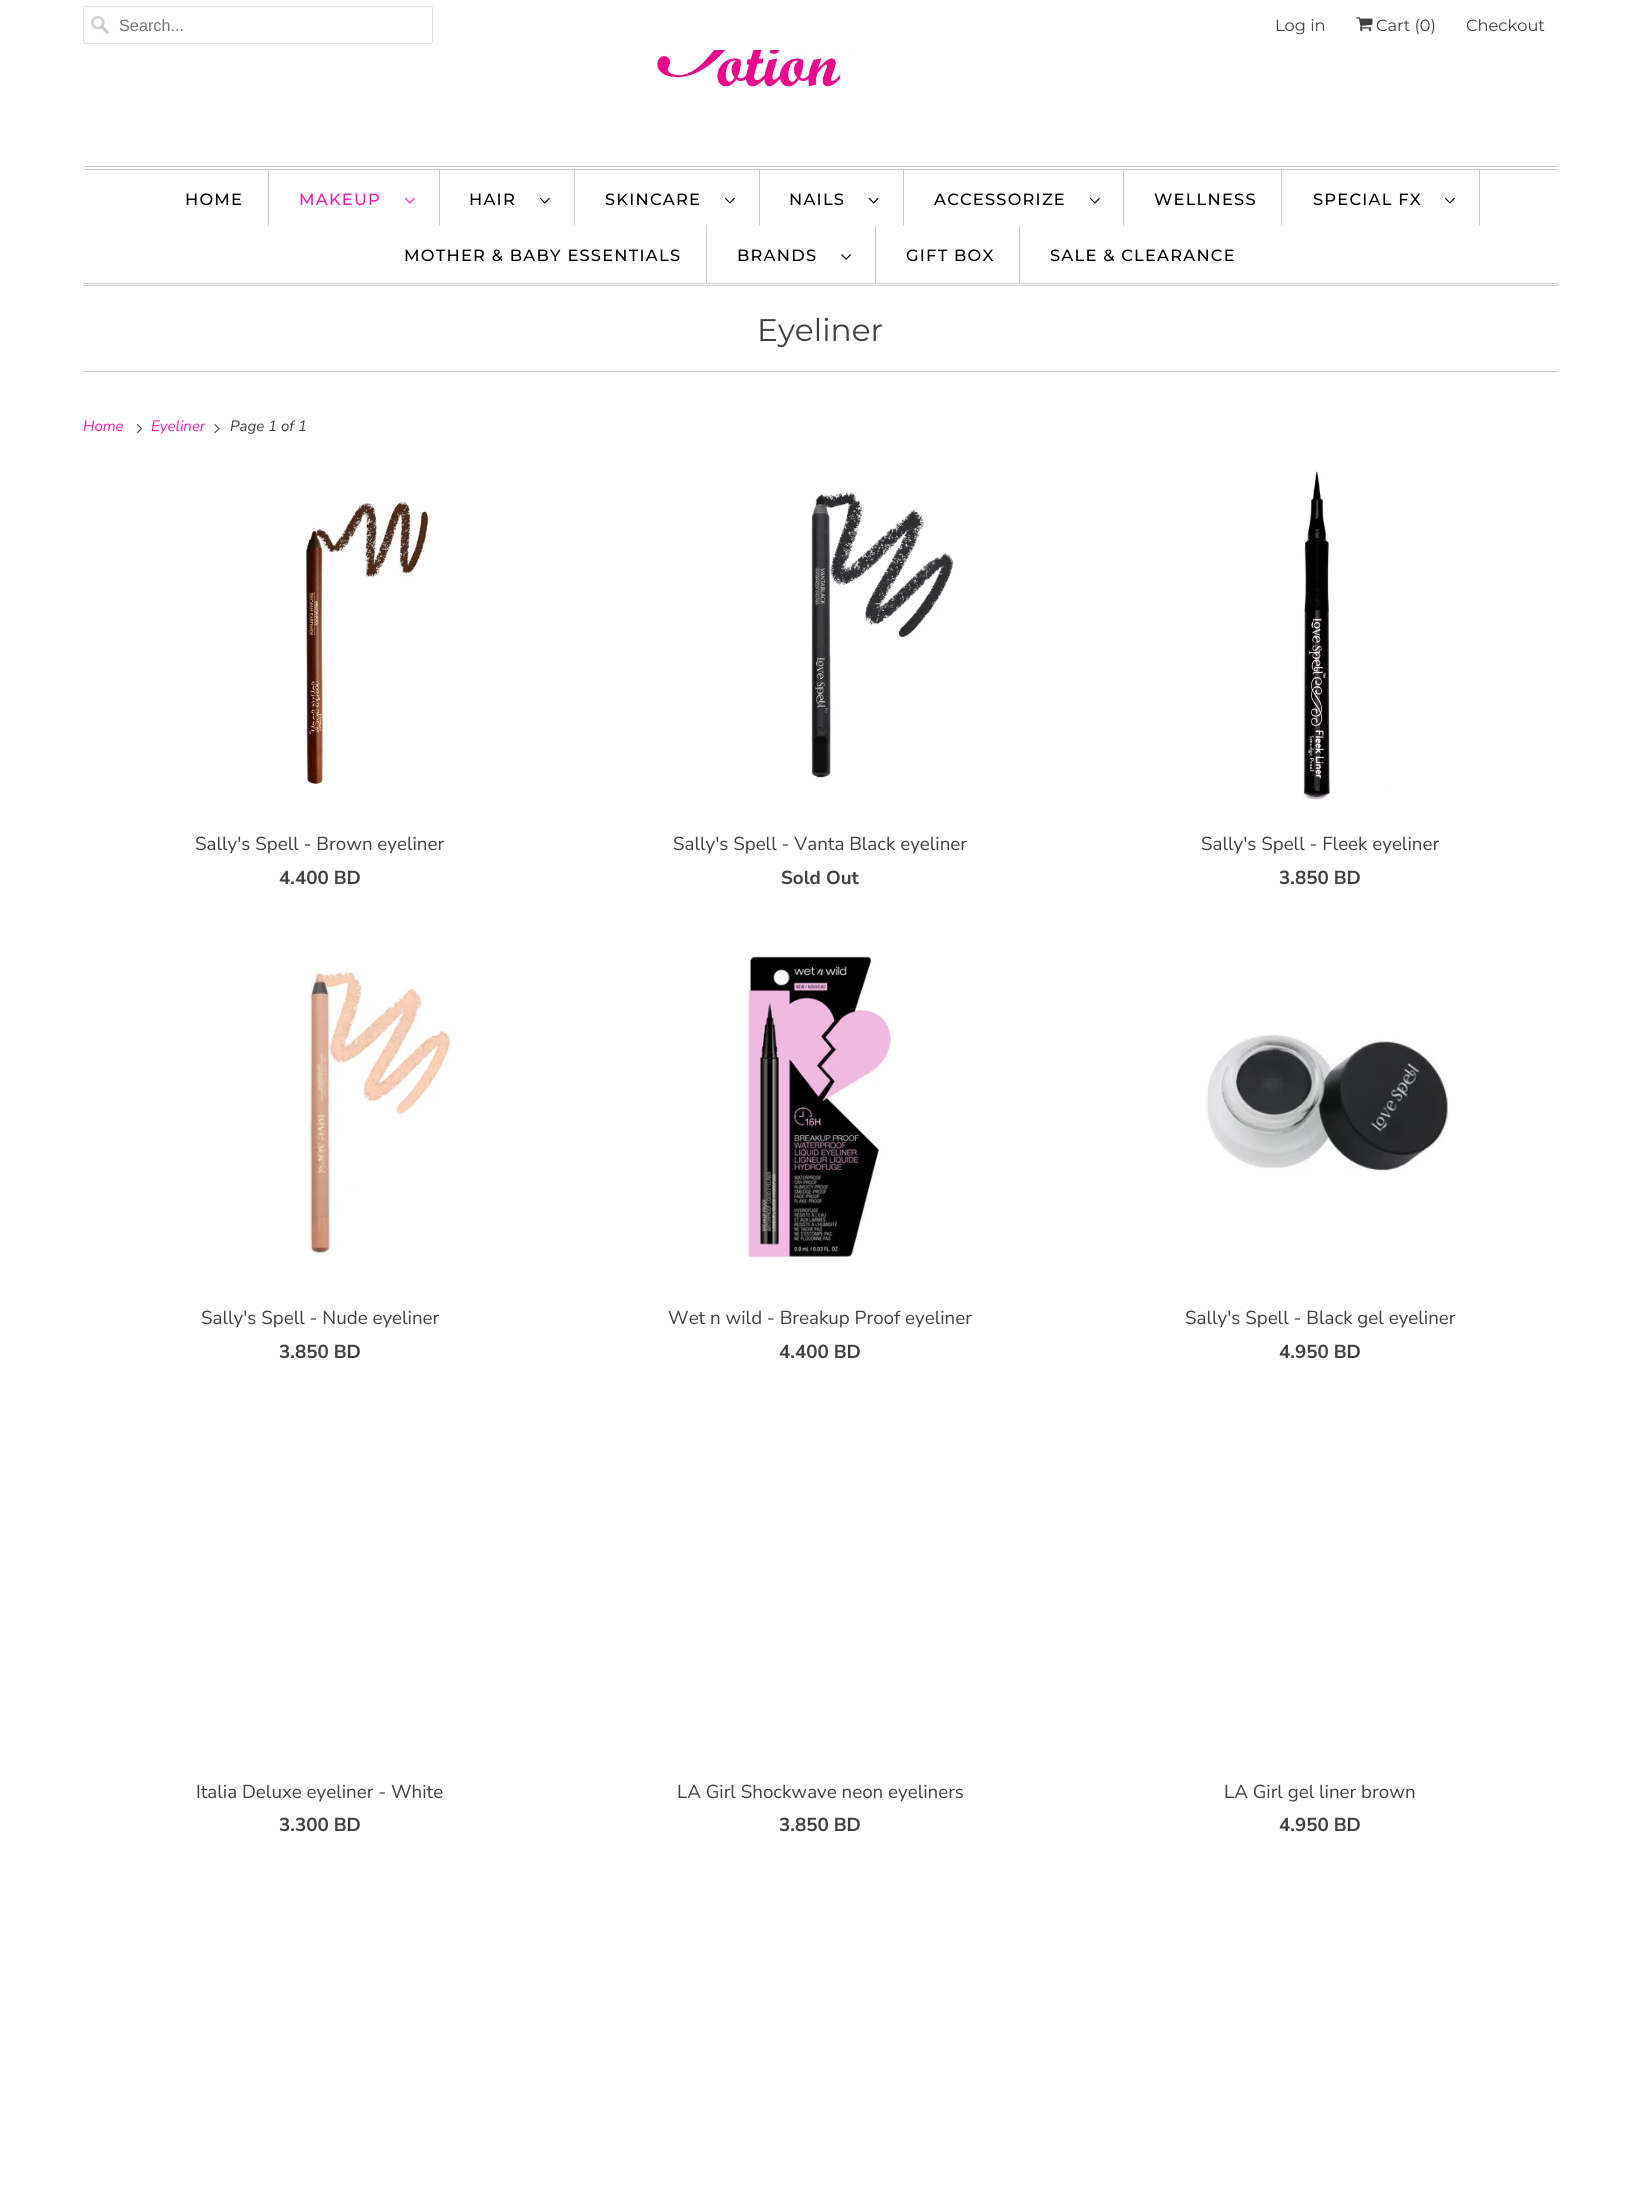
#include <cairo.h>
#include <math.h>
#include <stddef.h>

static cairo_t *ctx;

static void use_color(int r, int g, int b) {
    cairo_set_source_rgb(ctx, r / 255.0, g / 255.0, b / 255.0);
}

static void spaced_text(double x, double y, const char *s, double letter, double word) {
    cairo_move_to(ctx, x, y);
    while (*s) {
        char ch[5] = {0};
        int n = 0;
        do ch[n++] = *s++; while ((*s & 0xC0) == 0x80);
        cairo_show_text(ctx, ch);
        cairo_rel_move_to(ctx, letter + word * (*ch == ' '), 0);
    }
}

static void round_rect(double x, double y, double w, double h, double r) {
    cairo_new_sub_path(ctx);
    cairo_arc(ctx, x + w - r, y + h - r, r, 0, M_PI / 2);
    cairo_arc(ctx, x + r, y + h - r, r, M_PI / 2, M_PI);
    cairo_arc(ctx, x + r, y + r, r, M_PI, 1.5 * M_PI);
    cairo_arc(ctx, x + w - r, y + r, r, 1.5 * M_PI, 2 * M_PI);
    cairo_close_path(ctx);
}

static void picture(const char *path, double x, double y, double w, double h) {
    cairo_surface_t *image = cairo_image_surface_create_from_png(path);
    cairo_save(ctx);
    cairo_set_source_surface(ctx, image, x, y);
    cairo_rectangle(ctx, x, y, w, h);
    cairo_fill(ctx);
    cairo_restore(ctx);
    cairo_surface_destroy(image);
}

int main(void) {
    cairo_surface_t *surface = cairo_image_surface_create(CAIRO_FORMAT_RGB24, 1640, 2193);
    ctx = cairo_create(surface);
    cairo_font_options_t *options = cairo_font_options_create();
    cairo_font_options_set_hint_metrics(options, CAIRO_HINT_METRICS_OFF);
    cairo_font_options_set_hint_style(options, CAIRO_HINT_STYLE_NONE);
    cairo_set_font_options(ctx, options);
    cairo_set_miter_limit(ctx, 4);
    use_color(255, 255, 255);
    cairo_paint(ctx);
    picture("img1.png", 91, 16, 18, 18);
    round_rect(83.5, 6.5, 349, 37, 2);
    use_color(223, 223, 223);
    cairo_set_line_width(ctx, 1);
    cairo_stroke(ctx);
    cairo_select_font_face(ctx, "Liberation Sans", CAIRO_FONT_SLANT_NORMAL, CAIRO_FONT_WEIGHT_NORMAL);
    cairo_set_font_size(ctx, 16.25);
    use_color(117, 117, 117);
    cairo_move_to(ctx, 119, 31);
    cairo_show_text(ctx, "Search...");
    cairo_select_font_face(ctx, "Montserrat", CAIRO_FONT_SLANT_NORMAL, CAIRO_FONT_WEIGHT_NORMAL);
    use_color(64, 64, 64);
    cairo_move_to(ctx, 1275, 31);
    cairo_show_text(ctx, "Log in");
    picture("img2.png", 1356, 17, 17, 14);
    cairo_move_to(ctx, 1376, 31);
    cairo_show_text(ctx, "Cart (0)");
    cairo_move_to(ctx, 1466, 31);
    cairo_show_text(ctx, "Checkout");
    picture("img3.png", 657, 50, 209, 38);
    use_color(205, 205, 205);
    cairo_rectangle(ctx, 83, 166, 1475, 1);
    cairo_fill(ctx);
    cairo_rectangle(ctx, 83, 169, 1475, 1);
    cairo_fill(ctx);
    cairo_rectangle(ctx, 83, 283, 1475, 1);
    cairo_fill(ctx);
    cairo_rectangle(ctx, 83, 285, 1475, 1);
    cairo_fill(ctx);
    cairo_rectangle(ctx, 268, 170, 1, 56);
    cairo_fill(ctx);
    cairo_select_font_face(ctx, "Montserrat Medium", CAIRO_FONT_SLANT_NORMAL, CAIRO_FONT_WEIGHT_NORMAL);
    use_color(0, 0, 0);
    spaced_text(185, 205, "HOME", 1.25, 0);
    use_color(205, 205, 205);
    cairo_rectangle(ctx, 439, 170, 1, 56);
    cairo_fill(ctx);
    use_color(242, 27, 172);
    spaced_text(299, 205, "MAKEUP", 1.25, 0);
    picture("img4.png", 405, 197, 10, 7);
    use_color(205, 205, 205);
    cairo_rectangle(ctx, 574, 170, 1, 56);
    cairo_fill(ctx);
    use_color(0, 0, 0);
    spaced_text(469, 205, "HAIR", 1.25, 0);
    picture("img5.png", 540, 197, 10, 7);
    use_color(205, 205, 205);
    cairo_rectangle(ctx, 759, 170, 1, 56);
    cairo_fill(ctx);
    use_color(0, 0, 0);
    spaced_text(605, 205, "SKINCARE", 1.25, 0);
    picture("img5.png", 725, 197, 10, 7);
    use_color(205, 205, 205);
    cairo_rectangle(ctx, 903, 170, 1, 56);
    cairo_fill(ctx);
    use_color(0, 0, 0);
    spaced_text(789, 205, "NAILS", 1.25, 0);
    picture("img6.png", 868, 197, 11, 7);
    use_color(205, 205, 205);
    cairo_rectangle(ctx, 1123, 170, 1, 56);
    cairo_fill(ctx);
    use_color(0, 0, 0);
    spaced_text(934, 205, "ACCESSORIZE", 1.25, 0);
    picture("img5.png", 1090, 197, 10, 7);
    use_color(205, 205, 205);
    cairo_rectangle(ctx, 1281, 170, 1, 56);
    cairo_fill(ctx);
    use_color(0, 0, 0);
    spaced_text(1154, 205, "WELLNESS", 1.25, 0);
    use_color(205, 205, 205);
    cairo_rectangle(ctx, 1479, 170, 1, 56);
    cairo_fill(ctx);
    use_color(0, 0, 0);
    spaced_text(1313, 205, "SPECIAL FX", 1.25, 0);
    picture("img5.png", 1445, 197, 10, 7);
    use_color(205, 205, 205);
    cairo_rectangle(ctx, 706, 226, 1, 57);
    cairo_fill(ctx);
    use_color(0, 0, 0);
    spaced_text(404, 261, "MOTHER & BABY ESSENTIALS", 1.25, 0);
    use_color(205, 205, 205);
    cairo_rectangle(ctx, 875, 226, 1, 57);
    cairo_fill(ctx);
    use_color(0, 0, 0);
    spaced_text(737, 261, "BRANDS", 1.25, 0);
    picture("img7.png", 841, 254, 10, 6);
    use_color(205, 205, 205);
    cairo_rectangle(ctx, 1019, 226, 1, 57);
    cairo_fill(ctx);
    use_color(0, 0, 0);
    spaced_text(906, 261, "GIFT BOX", 1.25, 0);
    spaced_text(1050, 261, "SALE & CLEARANCE", 1.25, 0);
    use_color(205, 205, 205);
    cairo_rectangle(ctx, 83, 371, 1475, 1);
    cairo_fill(ctx);
    cairo_select_font_face(ctx, "Montserrat", CAIRO_FONT_SLANT_NORMAL, CAIRO_FONT_WEIGHT_NORMAL);
    cairo_set_font_size(ctx, 31.25);
    use_color(64, 64, 64);
    cairo_move_to(ctx, 757, 341);
    cairo_show_text(ctx, "Eyeliner");
    cairo_select_font_face(ctx, "Nunito Sans", CAIRO_FONT_SLANT_ITALIC, CAIRO_FONT_WEIGHT_NORMAL);
    cairo_set_font_size(ctx, 15);
    use_color(242, 27, 172);
    cairo_move_to(ctx, 83, 431);
    cairo_show_text(ctx, "Home");
    picture("img8.png", 136, 424, 7, 9);
    cairo_move_to(ctx, 151, 431);
    cairo_show_text(ctx, "Eyeliner");
    picture("img9.png", 214, 424, 6, 9);
    use_color(64, 64, 64);
    cairo_move_to(ctx, 230, 431);
    cairo_show_text(ctx, "Page 1 of 1");
    picture("img10.png", 305, 501, 126, 283);
    cairo_select_font_face(ctx, "Nunito Sans", CAIRO_FONT_SLANT_NORMAL, CAIRO_FONT_WEIGHT_NORMAL);
    cairo_set_font_size(ctx, 18.75);
    cairo_move_to(ctx, 195, 850);
    cairo_show_text(ctx, "Sally's Spell - Brown eyeliner");
    cairo_select_font_face(ctx, "Nunito Sans", CAIRO_FONT_SLANT_NORMAL, CAIRO_FONT_WEIGHT_BOLD);
    cairo_move_to(ctx, 279, 884);
    cairo_show_text(ctx, "4.400 BD");
    picture("img11.png", 811, 491, 144, 287);
    cairo_select_font_face(ctx, "Nunito Sans", CAIRO_FONT_SLANT_NORMAL, CAIRO_FONT_WEIGHT_NORMAL);
    cairo_move_to(ctx, 673, 850);
    cairo_show_text(ctx, "Sally's Spell - Vanta Black eyeliner");
    cairo_select_font_face(ctx, "Nunito Sans", CAIRO_FONT_SLANT_NORMAL, CAIRO_FONT_WEIGHT_BOLD);
    cairo_move_to(ctx, 781, 884);
    cairo_show_text(ctx, "Sold Out");
    picture("img12.png", 1303, 471, 84, 329);
    cairo_select_font_face(ctx, "Nunito Sans", CAIRO_FONT_SLANT_NORMAL, CAIRO_FONT_WEIGHT_NORMAL);
    cairo_move_to(ctx, 1201, 850);
    cairo_show_text(ctx, "Sally's Spell - Fleek eyeliner");
    cairo_select_font_face(ctx, "Nunito Sans", CAIRO_FONT_SLANT_NORMAL, CAIRO_FONT_WEIGHT_BOLD);
    cairo_move_to(ctx, 1279, 884);
    cairo_show_text(ctx, "3.850 BD");
    picture("img13.png", 310, 969, 141, 285);
    cairo_select_font_face(ctx, "Nunito Sans", CAIRO_FONT_SLANT_NORMAL, CAIRO_FONT_WEIGHT_NORMAL);
    cairo_move_to(ctx, 201, 1324);
    cairo_show_text(ctx, "Sally's Spell - Nude eyeliner");
    cairo_select_font_face(ctx, "Nunito Sans", CAIRO_FONT_SLANT_NORMAL, CAIRO_FONT_WEIGHT_BOLD);
    cairo_move_to(ctx, 279, 1358);
    cairo_show_text(ctx, "3.850 BD");
    picture("img14.png", 747, 956, 144, 302);
    cairo_select_font_face(ctx, "Nunito Sans", CAIRO_FONT_SLANT_NORMAL, CAIRO_FONT_WEIGHT_NORMAL);
    cairo_move_to(ctx, 668, 1324);
    cairo_show_text(ctx, "Wet n wild - Breakup Proof eyeliner");
    cairo_select_font_face(ctx, "Nunito Sans", CAIRO_FONT_SLANT_NORMAL, CAIRO_FONT_WEIGHT_BOLD);
    cairo_move_to(ctx, 779, 1358);
    cairo_show_text(ctx, "4.400 BD");
    picture("img15.png", 1206, 1034, 245, 137);
    cairo_select_font_face(ctx, "Nunito Sans", CAIRO_FONT_SLANT_NORMAL, CAIRO_FONT_WEIGHT_NORMAL);
    cairo_move_to(ctx, 1185, 1324);
    cairo_show_text(ctx, "Sally's Spell - Black gel eyeliner");
    cairo_select_font_face(ctx, "Nunito Sans", CAIRO_FONT_SLANT_NORMAL, CAIRO_FONT_WEIGHT_BOLD);
    cairo_move_to(ctx, 1279, 1358);
    cairo_show_text(ctx, "4.950 BD");
    cairo_select_font_face(ctx, "Nunito Sans", CAIRO_FONT_SLANT_NORMAL, CAIRO_FONT_WEIGHT_NORMAL);
    cairo_move_to(ctx, 196, 1798);
    cairo_show_text(ctx, "Italia Deluxe eyeliner - White");
    cairo_select_font_face(ctx, "Nunito Sans", CAIRO_FONT_SLANT_NORMAL, CAIRO_FONT_WEIGHT_BOLD);
    cairo_move_to(ctx, 279, 1831);
    cairo_show_text(ctx, "3.300 BD");
    cairo_select_font_face(ctx, "Nunito Sans", CAIRO_FONT_SLANT_NORMAL, CAIRO_FONT_WEIGHT_NORMAL);
    cairo_move_to(ctx, 677, 1798);
    cairo_show_text(ctx, "LA Girl Shockwave neon eyeliners");
    cairo_select_font_face(ctx, "Nunito Sans", CAIRO_FONT_SLANT_NORMAL, CAIRO_FONT_WEIGHT_BOLD);
    cairo_move_to(ctx, 779, 1831);
    cairo_show_text(ctx, "3.850 BD");
    cairo_select_font_face(ctx, "Nunito Sans", CAIRO_FONT_SLANT_NORMAL, CAIRO_FONT_WEIGHT_NORMAL);
    cairo_move_to(ctx, 1224, 1798);
    cairo_show_text(ctx, "LA Girl gel liner brown");
    cairo_select_font_face(ctx, "Nunito Sans", CAIRO_FONT_SLANT_NORMAL, CAIRO_FONT_WEIGHT_BOLD);
    cairo_move_to(ctx, 1279, 1831);
    cairo_show_text(ctx, "4.950 BD");
    cairo_surface_write_to_png(surface, "result.png");
    cairo_font_options_destroy(options);
    cairo_destroy(ctx);
    cairo_surface_destroy(surface);
    return 0;
}
